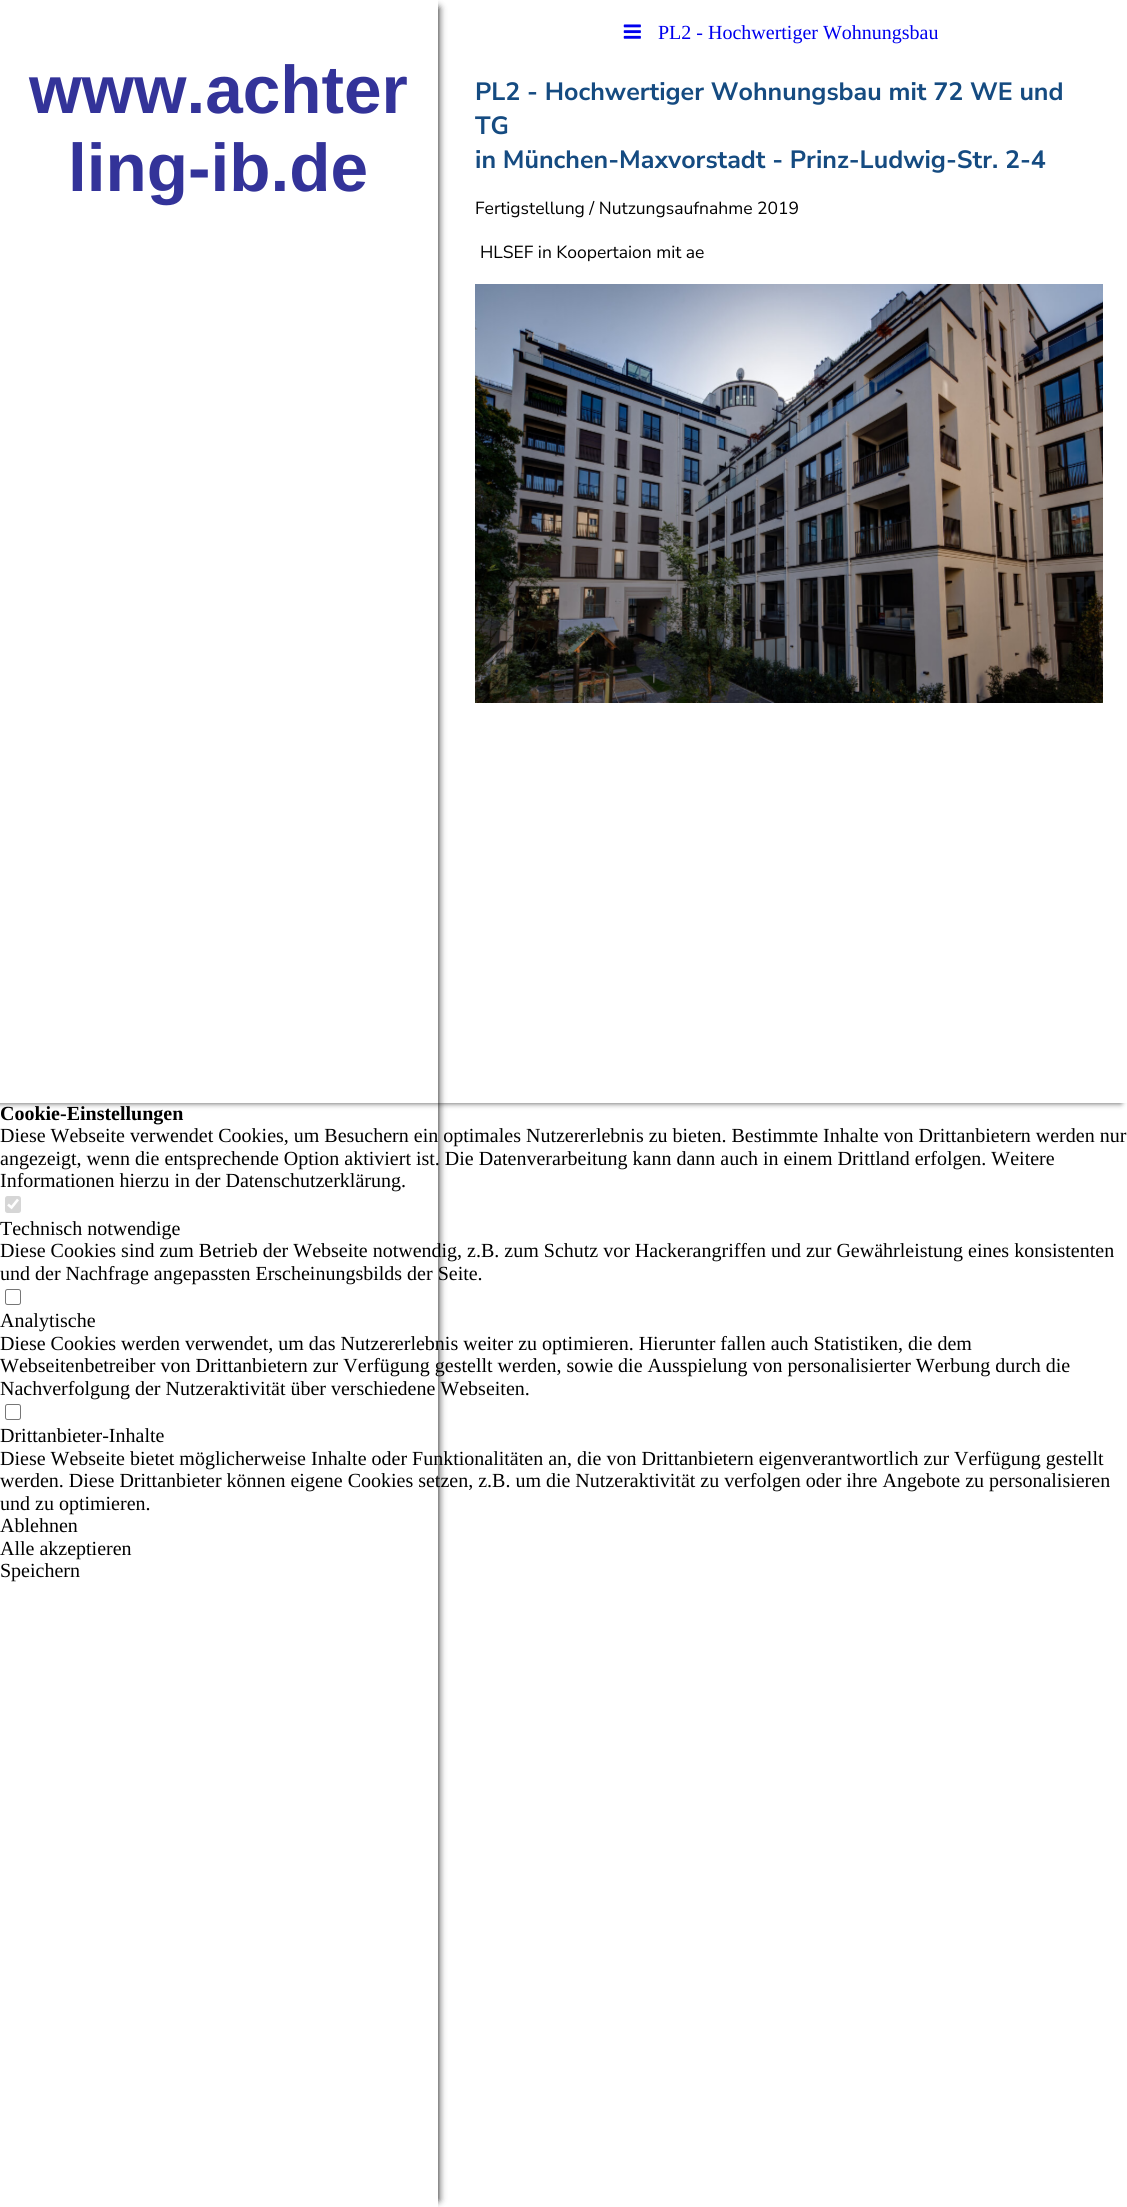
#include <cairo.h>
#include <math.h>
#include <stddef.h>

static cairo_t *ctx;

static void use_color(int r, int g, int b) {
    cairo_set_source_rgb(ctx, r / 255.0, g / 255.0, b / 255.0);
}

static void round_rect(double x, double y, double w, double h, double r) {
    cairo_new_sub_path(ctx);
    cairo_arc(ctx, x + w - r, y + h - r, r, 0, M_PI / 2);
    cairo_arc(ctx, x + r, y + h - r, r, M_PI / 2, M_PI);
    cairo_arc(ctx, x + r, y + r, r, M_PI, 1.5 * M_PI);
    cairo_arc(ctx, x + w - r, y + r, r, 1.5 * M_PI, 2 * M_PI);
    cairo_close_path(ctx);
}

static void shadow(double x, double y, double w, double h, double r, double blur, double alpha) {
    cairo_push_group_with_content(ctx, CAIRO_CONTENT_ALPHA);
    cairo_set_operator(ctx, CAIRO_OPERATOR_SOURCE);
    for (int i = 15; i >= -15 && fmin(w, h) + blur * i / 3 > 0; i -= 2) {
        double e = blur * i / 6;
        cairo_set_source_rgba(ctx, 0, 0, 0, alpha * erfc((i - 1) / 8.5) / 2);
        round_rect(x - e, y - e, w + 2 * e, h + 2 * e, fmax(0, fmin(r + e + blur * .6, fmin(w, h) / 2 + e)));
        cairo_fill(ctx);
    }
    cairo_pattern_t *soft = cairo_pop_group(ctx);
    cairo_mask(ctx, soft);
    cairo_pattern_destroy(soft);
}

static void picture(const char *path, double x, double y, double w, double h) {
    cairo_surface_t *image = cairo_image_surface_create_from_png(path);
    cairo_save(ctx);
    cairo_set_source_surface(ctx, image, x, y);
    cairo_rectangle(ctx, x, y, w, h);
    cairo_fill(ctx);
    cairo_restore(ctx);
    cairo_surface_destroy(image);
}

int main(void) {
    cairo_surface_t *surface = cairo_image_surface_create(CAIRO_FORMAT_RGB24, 1127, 2207);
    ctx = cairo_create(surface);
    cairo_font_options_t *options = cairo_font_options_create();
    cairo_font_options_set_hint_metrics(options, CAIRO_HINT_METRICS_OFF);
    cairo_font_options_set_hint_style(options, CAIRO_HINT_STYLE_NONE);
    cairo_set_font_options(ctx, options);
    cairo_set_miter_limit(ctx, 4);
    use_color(255, 255, 255);
    cairo_paint(ctx);
    cairo_save(ctx);
    cairo_set_fill_rule(ctx, CAIRO_FILL_RULE_EVEN_ODD);
    cairo_new_path(ctx);
    cairo_move_to(ctx, 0, 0);
    cairo_line_to(ctx, 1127, 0);
    cairo_line_to(ctx, 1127, 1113);
    cairo_line_to(ctx, 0, 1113);
    cairo_close_path(ctx);
    cairo_move_to(ctx, 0, 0);
    cairo_line_to(ctx, 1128, 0);
    cairo_line_to(ctx, 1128, 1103);
    cairo_line_to(ctx, 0, 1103);
    cairo_close_path(ctx);
    cairo_clip(ctx);
    use_color(0, 0, 0);
    shadow(-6, 0, 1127, 1103, 0, 3, 0.7);
    cairo_restore(ctx);
    picture("img1.png", 623, 24, 18, 15);
    cairo_select_font_face(ctx, "Liberation Serif", CAIRO_FONT_SLANT_NORMAL, CAIRO_FONT_WEIGHT_NORMAL);
    cairo_set_font_size(ctx, 20);
    use_color(0, 0, 238);
    cairo_move_to(ctx, 658, 39);
    cairo_show_text(ctx, "PL2 - Hochwertiger Wohnungsbau");
    cairo_save(ctx);
    cairo_set_fill_rule(ctx, CAIRO_FILL_RULE_EVEN_ODD);
    cairo_new_path(ctx);
    cairo_move_to(ctx, 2, 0);
    cairo_line_to(ctx, 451, 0);
    cairo_line_to(ctx, 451, 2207);
    cairo_line_to(ctx, 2, 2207);
    cairo_close_path(ctx);
    cairo_move_to(ctx, 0, 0);
    cairo_line_to(ctx, 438, 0);
    cairo_line_to(ctx, 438, 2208);
    cairo_line_to(ctx, 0, 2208);
    cairo_close_path(ctx);
    cairo_clip(ctx);
    use_color(0, 0, 0);
    shadow(15, 8, 423, 2192, 0, 4, 1);
    cairo_restore(ctx);
    cairo_select_font_face(ctx, "Liberation Sans", CAIRO_FONT_SLANT_NORMAL, CAIRO_FONT_WEIGHT_BOLD);
    cairo_set_font_size(ctx, 67.5);
    use_color(51, 51, 153);
    cairo_move_to(ctx, 29, 113);
    cairo_show_text(ctx, "www.achter");
    cairo_move_to(ctx, 68, 191);
    cairo_show_text(ctx, "ling-ib.de");
    cairo_select_font_face(ctx, "Nunito Sans", CAIRO_FONT_SLANT_NORMAL, CAIRO_FONT_WEIGHT_BOLD);
    cairo_set_font_size(ctx, 25);
    use_color(21, 75, 129);
    cairo_move_to(ctx, 475, 100);
    cairo_show_text(ctx, "PL2 - Hochwertiger Wohnungsbau mit 72 WE und");
    cairo_move_to(ctx, 475, 134);
    cairo_show_text(ctx, "TG");
    cairo_move_to(ctx, 475, 168);
    cairo_show_text(ctx, "in München-Maxvorstadt - Prinz-Ludwig-Str. 2-4");
    cairo_select_font_face(ctx, "Nunito Sans", CAIRO_FONT_SLANT_NORMAL, CAIRO_FONT_WEIGHT_NORMAL);
    cairo_set_font_size(ctx, 17.5);
    use_color(0, 0, 0);
    cairo_move_to(ctx, 475, 214);
    cairo_show_text(ctx, "Fertigstellung / Nutzungsaufnahme 2019");
    cairo_move_to(ctx, 480, 258);
    cairo_show_text(ctx, "HLSEF in Koopertaion mit ae");
    picture("img2.png", 475, 284, 628, 419);
    cairo_select_font_face(ctx, "Liberation Serif", CAIRO_FONT_SLANT_NORMAL, CAIRO_FONT_WEIGHT_BOLD);
    cairo_set_font_size(ctx, 20);
    cairo_move_to(ctx, 0, 1120);
    cairo_show_text(ctx, "Cookie-Einstellungen");
    cairo_select_font_face(ctx, "Liberation Serif", CAIRO_FONT_SLANT_NORMAL, CAIRO_FONT_WEIGHT_NORMAL);
    cairo_move_to(ctx, 0, 1142);
    cairo_show_text(ctx, "Diese Webseite verwendet Cookies, um Besuchern ein optimales Nutzererlebnis zu bieten. Bestimmte Inhalte von Drittanbietern werden nur");
    cairo_move_to(ctx, 0, 1165);
    cairo_show_text(ctx, "angezeigt, wenn die entsprechende Option aktiviert ist. Die Datenverarbeitung kann dann auch in einem Drittland erfolgen. Weitere");
    cairo_move_to(ctx, 0, 1187);
    cairo_show_text(ctx, "Informationen hierzu in der Datenschutzerklärung.");
    use_color(214, 214, 214);
    round_rect(5, 1196, 16, 17, 2.5);
    cairo_fill(ctx);
    cairo_new_path(ctx);
    cairo_move_to(ctx, 8, 1204.5);
    cairo_line_to(ctx, 11.5, 1207.5);
    cairo_line_to(ctx, 18, 1199.5);
    use_color(255, 255, 255);
    cairo_set_line_width(ctx, 2.6);
    cairo_stroke(ctx);
    use_color(0, 0, 0);
    cairo_move_to(ctx, 0, 1235);
    cairo_show_text(ctx, "Technisch notwendige");
    cairo_move_to(ctx, 0, 1257);
    cairo_show_text(ctx, "Diese Cookies sind zum Betrieb der Webseite notwendig, z.B. zum Schutz vor Hackerangriffen und zur Gewährleistung eines konsistenten");
    cairo_move_to(ctx, 0, 1280);
    cairo_show_text(ctx, "und der Nachfrage angepassten Erscheinungsbilds der Seite.");
    round_rect(5.5, 1289.5, 15, 15, 2);
    use_color(118, 118, 118);
    cairo_set_line_width(ctx, 1);
    cairo_stroke(ctx);
    use_color(0, 0, 0);
    cairo_move_to(ctx, 0, 1327);
    cairo_show_text(ctx, "Analytische");
    cairo_move_to(ctx, 0, 1350);
    cairo_show_text(ctx, "Diese Cookies werden verwendet, um das Nutzererlebnis weiter zu optimieren. Hierunter fallen auch Statistiken, die dem");
    cairo_move_to(ctx, 0, 1372);
    cairo_show_text(ctx, "Webseitenbetreiber von Drittanbietern zur Verfügung gestellt werden, sowie die Ausspielung von personalisierter Werbung durch die");
    cairo_move_to(ctx, 0, 1395);
    cairo_show_text(ctx, "Nachverfolgung der Nutzeraktivität über verschiedene Webseiten.");
    round_rect(5.5, 1404.5, 15, 15, 2);
    use_color(118, 118, 118);
    cairo_stroke(ctx);
    use_color(0, 0, 0);
    cairo_move_to(ctx, 0, 1442);
    cairo_show_text(ctx, "Drittanbieter-Inhalte");
    cairo_move_to(ctx, 0, 1465);
    cairo_show_text(ctx, "Diese Webseite bietet möglicherweise Inhalte oder Funktionalitäten an, die von Drittanbietern eigenverantwortlich zur Verfügung gestellt");
    cairo_move_to(ctx, 0, 1487);
    cairo_show_text(ctx, "werden. Diese Drittanbieter können eigene Cookies setzen, z.B. um die Nutzeraktivität zu verfolgen oder ihre Angebote zu personalisieren");
    cairo_move_to(ctx, 0, 1510);
    cairo_show_text(ctx, "und zu optimieren.");
    cairo_move_to(ctx, 0, 1532);
    cairo_show_text(ctx, "Ablehnen");
    cairo_move_to(ctx, 0, 1555);
    cairo_show_text(ctx, "Alle akzeptieren");
    cairo_move_to(ctx, 0, 1577);
    cairo_show_text(ctx, "Speichern");
    cairo_surface_write_to_png(surface, "result.png");
    cairo_font_options_destroy(options);
    cairo_destroy(ctx);
    cairo_surface_destroy(surface);
    return 0;
}
